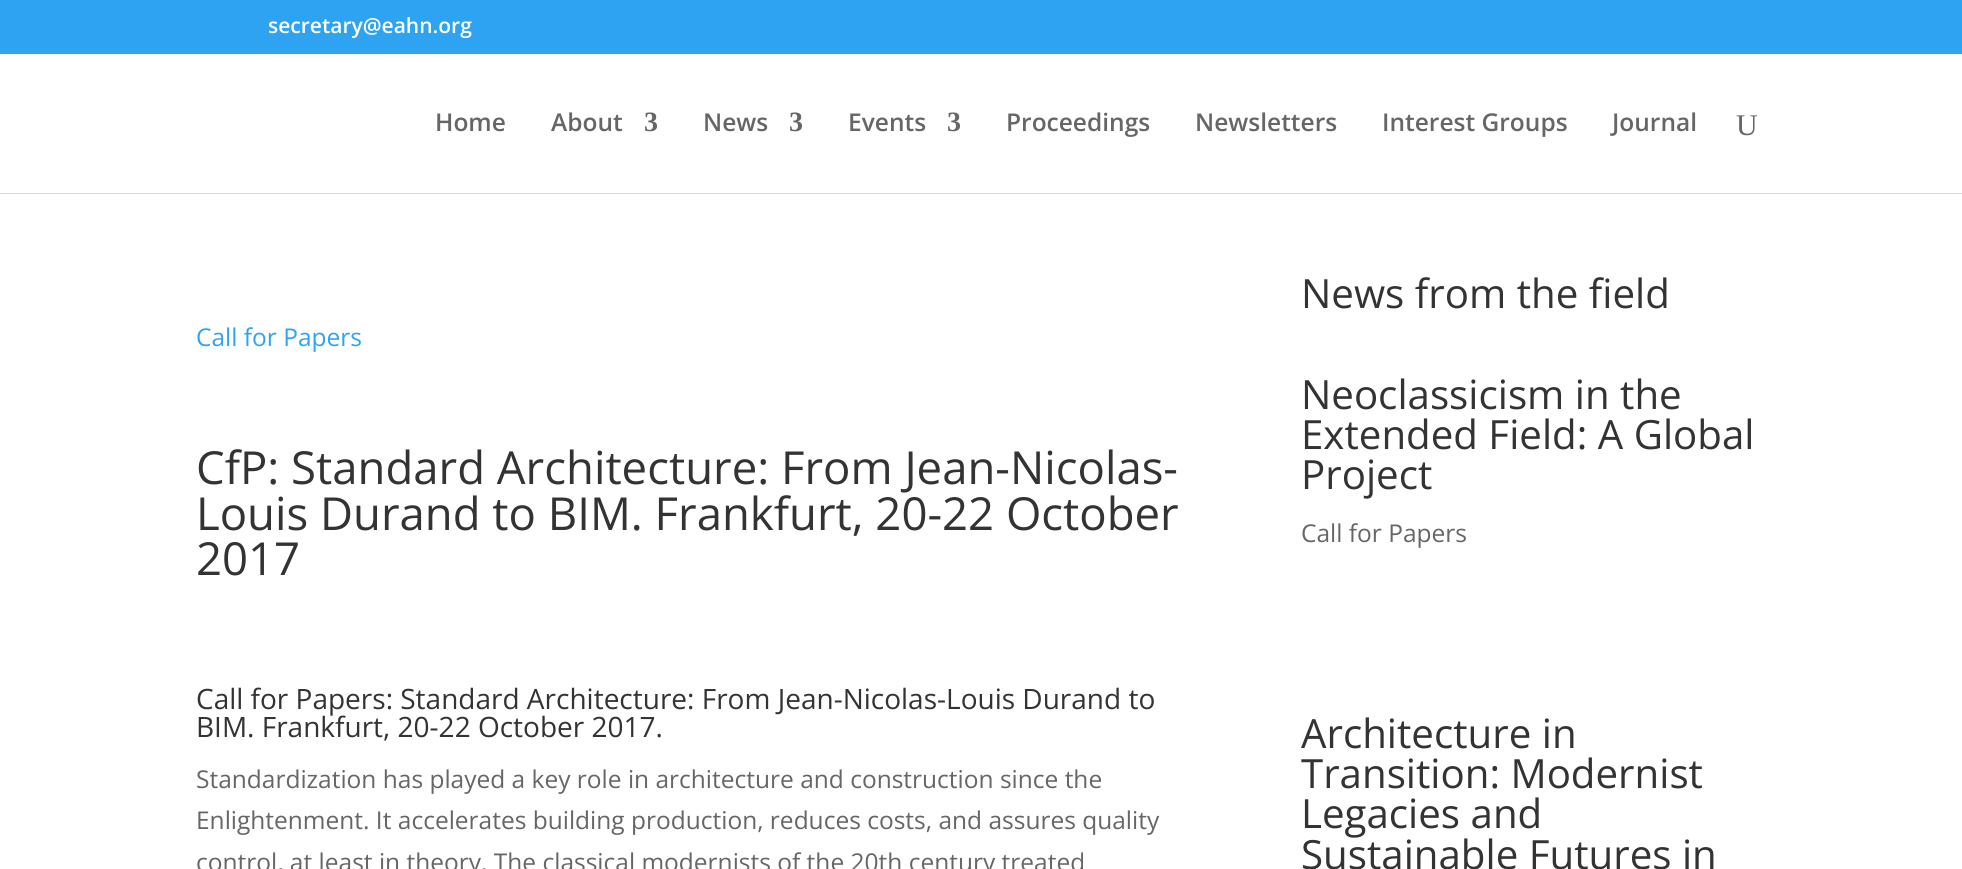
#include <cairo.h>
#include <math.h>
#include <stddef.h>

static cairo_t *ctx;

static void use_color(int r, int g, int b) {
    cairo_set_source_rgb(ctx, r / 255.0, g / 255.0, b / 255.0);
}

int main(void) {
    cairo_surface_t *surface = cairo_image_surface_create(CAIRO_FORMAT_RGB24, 1962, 869);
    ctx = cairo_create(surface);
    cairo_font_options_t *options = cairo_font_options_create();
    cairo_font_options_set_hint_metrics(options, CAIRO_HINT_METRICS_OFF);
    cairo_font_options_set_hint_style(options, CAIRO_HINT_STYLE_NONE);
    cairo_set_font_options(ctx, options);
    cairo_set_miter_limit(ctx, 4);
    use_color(255, 255, 255);
    cairo_paint(ctx);
    use_color(46, 163, 242);
    cairo_rectangle(ctx, 0, 0, 1962, 54);
    cairo_fill(ctx);
    cairo_select_font_face(ctx, "Open Sans SemiBold", CAIRO_FONT_SLANT_NORMAL, CAIRO_FONT_WEIGHT_NORMAL);
    cairo_set_font_size(ctx, 21);
    use_color(255, 255, 255);
    cairo_move_to(ctx, 268, 33);
    cairo_show_text(ctx, "secretary@eahn.org");
    use_color(218, 216, 210);
    cairo_new_path(ctx);
    cairo_move_to(ctx, 0, 192);
    cairo_line_to(ctx, 0, 194);
    cairo_line_to(ctx, 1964, 194);
    cairo_line_to(ctx, 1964, 54);
    cairo_line_to(ctx, 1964, 192);
    cairo_close_path(ctx);
    cairo_fill(ctx);
    use_color(255, 255, 255);
    cairo_rectangle(ctx, 0, 192, 1962, 1);
    cairo_fill(ctx);
    cairo_set_font_size(ctx, 24.5);
    use_color(102, 102, 102);
    cairo_move_to(ctx, 435, 131);
    cairo_show_text(ctx, "Home");
    cairo_move_to(ctx, 551, 131);
    cairo_show_text(ctx, "About");
    cairo_select_font_face(ctx, "Liberation Serif", CAIRO_FONT_SLANT_NORMAL, CAIRO_FONT_WEIGHT_BOLD);
    cairo_set_font_size(ctx, 28);
    cairo_move_to(ctx, 644, 131);
    cairo_show_text(ctx, "3");
    cairo_select_font_face(ctx, "Open Sans SemiBold", CAIRO_FONT_SLANT_NORMAL, CAIRO_FONT_WEIGHT_NORMAL);
    cairo_set_font_size(ctx, 24.5);
    cairo_move_to(ctx, 703, 131);
    cairo_show_text(ctx, "News");
    cairo_select_font_face(ctx, "Liberation Serif", CAIRO_FONT_SLANT_NORMAL, CAIRO_FONT_WEIGHT_BOLD);
    cairo_set_font_size(ctx, 28);
    cairo_move_to(ctx, 789, 131);
    cairo_show_text(ctx, "3");
    cairo_select_font_face(ctx, "Open Sans SemiBold", CAIRO_FONT_SLANT_NORMAL, CAIRO_FONT_WEIGHT_NORMAL);
    cairo_set_font_size(ctx, 24.5);
    cairo_move_to(ctx, 848, 131);
    cairo_show_text(ctx, "Events");
    cairo_select_font_face(ctx, "Liberation Serif", CAIRO_FONT_SLANT_NORMAL, CAIRO_FONT_WEIGHT_BOLD);
    cairo_set_font_size(ctx, 28);
    cairo_move_to(ctx, 947, 131);
    cairo_show_text(ctx, "3");
    cairo_select_font_face(ctx, "Open Sans SemiBold", CAIRO_FONT_SLANT_NORMAL, CAIRO_FONT_WEIGHT_NORMAL);
    cairo_set_font_size(ctx, 24.5);
    cairo_move_to(ctx, 1006, 131);
    cairo_show_text(ctx, "Proceedings");
    cairo_move_to(ctx, 1195, 131);
    cairo_show_text(ctx, "Newsletters");
    cairo_move_to(ctx, 1382, 131);
    cairo_show_text(ctx, "Interest Groups");
    cairo_move_to(ctx, 1612, 131);
    cairo_show_text(ctx, "Journal");
    cairo_select_font_face(ctx, "Liberation Serif", CAIRO_FONT_SLANT_NORMAL, CAIRO_FONT_WEIGHT_NORMAL);
    cairo_set_font_size(ctx, 30);
    cairo_move_to(ctx, 1736, 135);
    cairo_show_text(ctx, "U");
    cairo_select_font_face(ctx, "Open Sans", CAIRO_FONT_SLANT_NORMAL, CAIRO_FONT_WEIGHT_NORMAL);
    cairo_set_font_size(ctx, 24.5);
    use_color(46, 163, 242);
    cairo_move_to(ctx, 196, 346);
    cairo_show_text(ctx, "Call for Papers");
    cairo_set_font_size(ctx, 45.5);
    use_color(51, 51, 51);
    cairo_move_to(ctx, 196, 484);
    cairo_show_text(ctx, "CfP: Standard Architecture: From Jean-Nicolas-");
    cairo_move_to(ctx, 196, 530);
    cairo_show_text(ctx, "Louis Durand to BIM. Frankfurt, 20-22 October");
    cairo_move_to(ctx, 196, 575);
    cairo_show_text(ctx, "2017");
    cairo_set_font_size(ctx, 28);
    cairo_move_to(ctx, 196, 709);
    cairo_show_text(ctx, "Call for Papers: Standard Architecture: From Jean-Nicolas-Louis Durand to");
    cairo_move_to(ctx, 196, 737);
    cairo_show_text(ctx, "BIM. Frankfurt, 20-22 October 2017.");
    cairo_set_font_size(ctx, 24.5);
    use_color(102, 102, 102);
    cairo_move_to(ctx, 196, 788);
    cairo_show_text(ctx, "Standardization has played a key role in architecture and construction since the");
    cairo_move_to(ctx, 196, 829);
    cairo_show_text(ctx, "Enlightenment. It accelerates building production, reduces costs, and assures quality");
    cairo_move_to(ctx, 196, 871);
    cairo_show_text(ctx, "control, at least in theory. The classical modernists of the 20th century treated");
    cairo_set_font_size(ctx, 40.25);
    use_color(51, 51, 51);
    cairo_move_to(ctx, 1301, 308);
    cairo_show_text(ctx, "News from the field");
    cairo_move_to(ctx, 1301, 409);
    cairo_show_text(ctx, "Neoclassicism in the");
    cairo_move_to(ctx, 1301, 449);
    cairo_show_text(ctx, "Extended Field: A Global");
    cairo_move_to(ctx, 1301, 489);
    cairo_show_text(ctx, "Project");
    cairo_set_font_size(ctx, 24.5);
    use_color(102, 102, 102);
    cairo_move_to(ctx, 1301, 542);
    cairo_show_text(ctx, "Call for Papers");
    cairo_set_font_size(ctx, 40.25);
    use_color(51, 51, 51);
    cairo_move_to(ctx, 1301, 748);
    cairo_show_text(ctx, "Architecture in");
    cairo_move_to(ctx, 1301, 788);
    cairo_show_text(ctx, "Transition: Modernist");
    cairo_move_to(ctx, 1301, 828);
    cairo_show_text(ctx, "Legacies and");
    cairo_move_to(ctx, 1301, 869);
    cairo_show_text(ctx, "Sustainable Futures in");
    cairo_surface_write_to_png(surface, "result.png");
    cairo_font_options_destroy(options);
    cairo_destroy(ctx);
    cairo_surface_destroy(surface);
    return 0;
}
